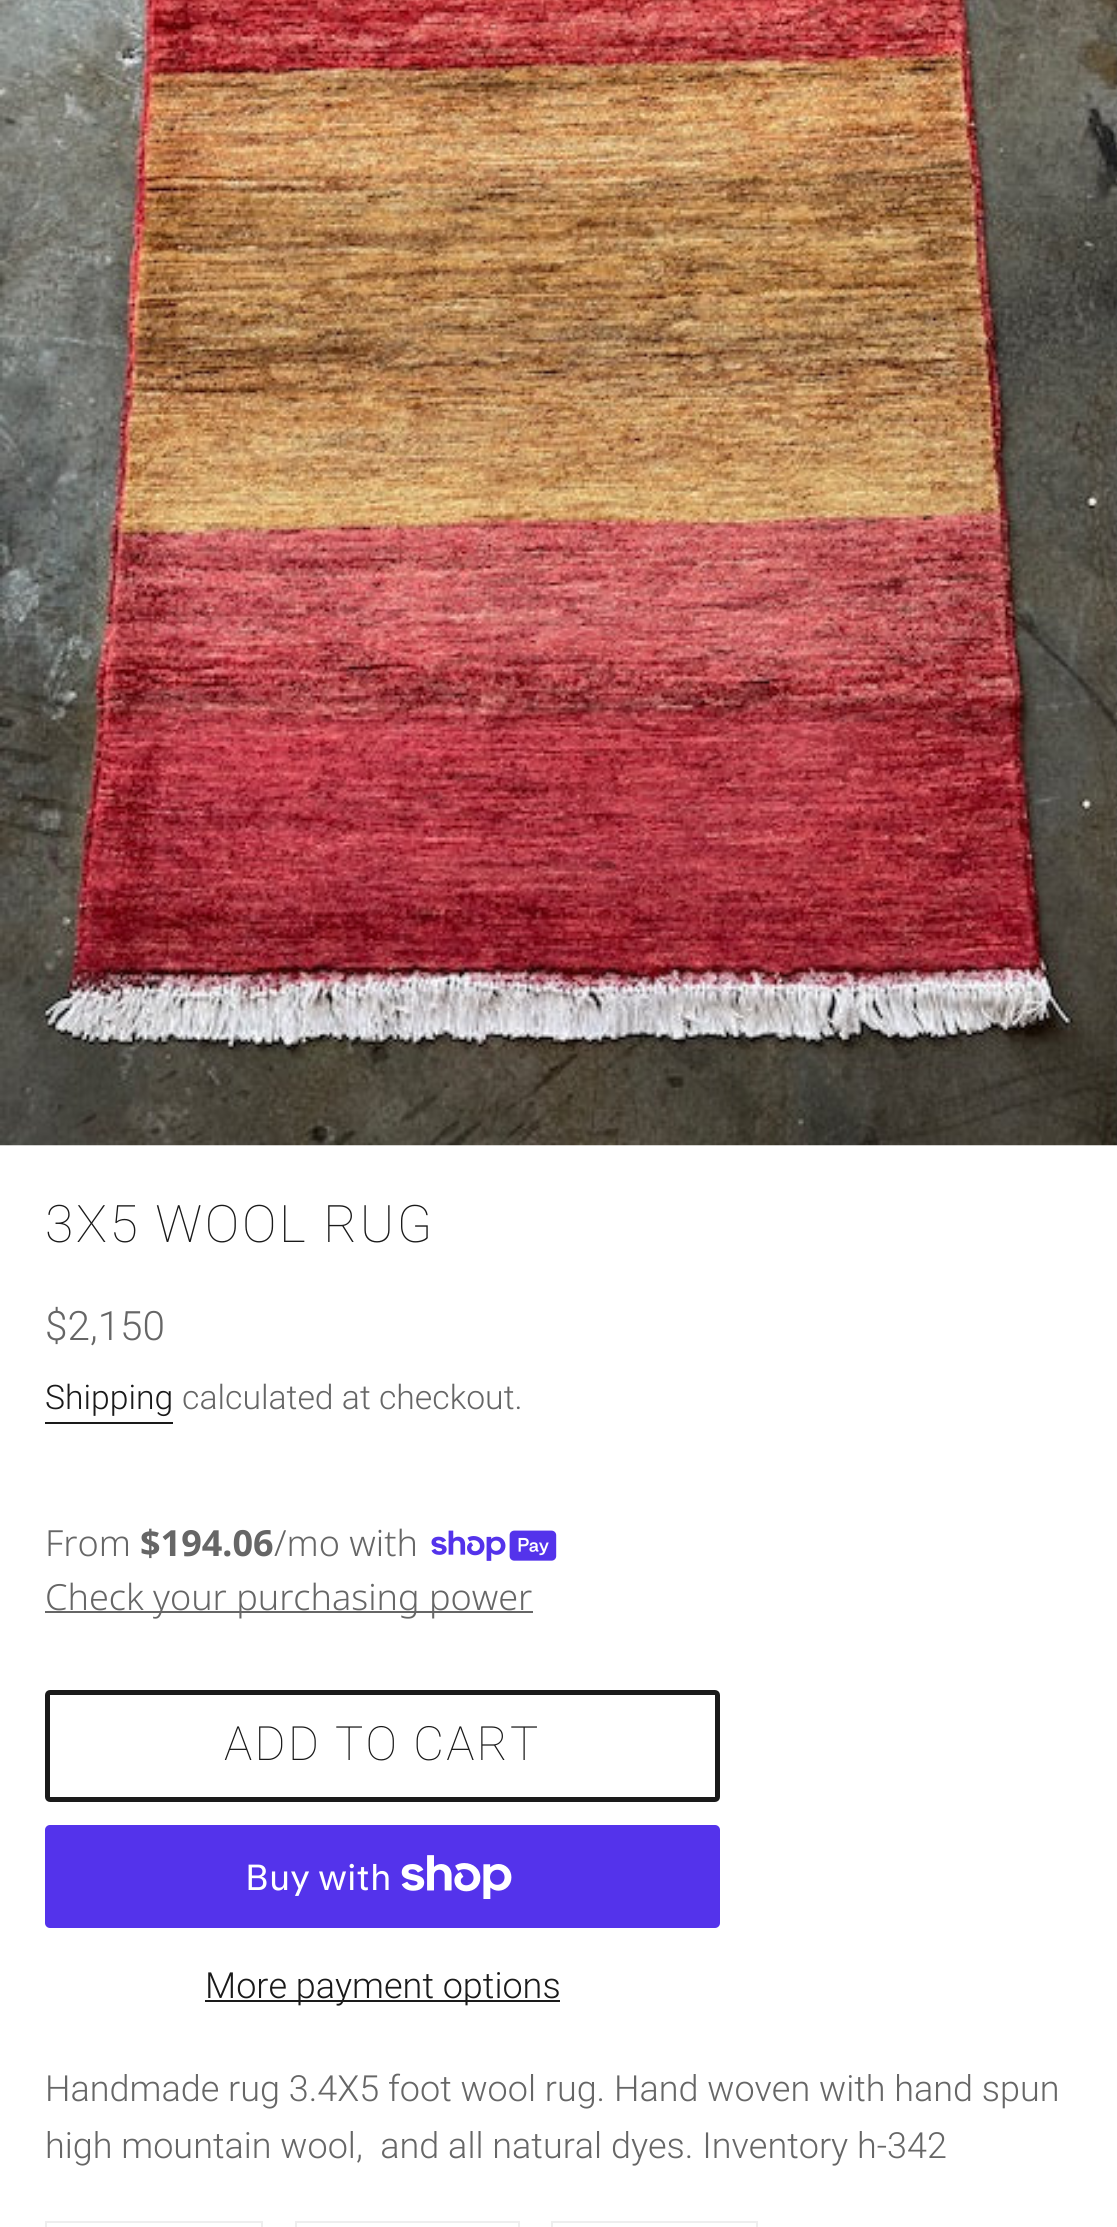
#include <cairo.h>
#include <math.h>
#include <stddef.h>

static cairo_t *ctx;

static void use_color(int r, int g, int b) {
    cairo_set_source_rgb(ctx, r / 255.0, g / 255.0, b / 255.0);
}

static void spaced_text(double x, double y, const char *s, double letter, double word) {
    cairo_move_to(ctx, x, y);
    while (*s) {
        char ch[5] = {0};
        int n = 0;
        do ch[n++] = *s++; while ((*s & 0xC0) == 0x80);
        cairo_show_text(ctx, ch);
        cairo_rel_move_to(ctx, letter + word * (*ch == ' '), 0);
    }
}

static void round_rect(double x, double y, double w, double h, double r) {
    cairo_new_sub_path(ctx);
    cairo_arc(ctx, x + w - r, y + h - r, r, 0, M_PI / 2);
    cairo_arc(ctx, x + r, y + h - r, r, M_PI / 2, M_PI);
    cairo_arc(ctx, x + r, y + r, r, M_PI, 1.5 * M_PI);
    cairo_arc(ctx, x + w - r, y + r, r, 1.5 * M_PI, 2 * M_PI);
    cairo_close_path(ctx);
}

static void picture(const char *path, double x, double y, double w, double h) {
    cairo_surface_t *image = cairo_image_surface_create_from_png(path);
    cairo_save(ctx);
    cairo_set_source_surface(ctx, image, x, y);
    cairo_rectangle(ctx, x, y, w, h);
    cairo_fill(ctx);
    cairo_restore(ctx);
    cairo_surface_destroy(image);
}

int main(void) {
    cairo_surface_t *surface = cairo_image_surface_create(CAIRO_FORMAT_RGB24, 1117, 2227);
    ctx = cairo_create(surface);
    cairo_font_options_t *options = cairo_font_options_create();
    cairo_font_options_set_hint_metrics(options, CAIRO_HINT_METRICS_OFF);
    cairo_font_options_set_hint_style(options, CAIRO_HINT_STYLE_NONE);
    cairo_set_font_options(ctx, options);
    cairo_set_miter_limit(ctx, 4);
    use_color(255, 255, 255);
    cairo_paint(ctx);
    picture("img1.png", 0, 0, 1117, 1146);
    cairo_select_font_face(ctx, "Roboto ExtraLight", CAIRO_FONT_SLANT_NORMAL, CAIRO_FONT_WEIGHT_NORMAL);
    cairo_set_font_size(ctx, 51.75);
    use_color(26, 26, 26);
    spaced_text(45, 1242, "3X5 WOOL RUG", 2.6, 0);
    cairo_select_font_face(ctx, "Roboto Light", CAIRO_FONT_SLANT_NORMAL, CAIRO_FONT_WEIGHT_NORMAL);
    cairo_set_font_size(ctx, 40.5);
    use_color(102, 102, 102);
    cairo_move_to(ctx, 45, 1340);
    cairo_show_text(ctx, "$2,150");
    cairo_set_font_size(ctx, 33.75);
    use_color(26, 26, 26);
    cairo_move_to(ctx, 45, 1409);
    cairo_show_text(ctx, "Shipping");
    cairo_rectangle(ctx, 45, 1422, 128, 2);
    cairo_fill(ctx);
    use_color(102, 102, 102);
    cairo_move_to(ctx, 182, 1409);
    cairo_show_text(ctx, "calculated at checkout.");
    cairo_select_font_face(ctx, "Noto Sans Light", CAIRO_FONT_SLANT_NORMAL, CAIRO_FONT_WEIGHT_NORMAL);
    cairo_set_font_size(ctx, 36);
    cairo_move_to(ctx, 45, 1556);
    cairo_show_text(ctx, "From");
    cairo_select_font_face(ctx, "Noto Sans", CAIRO_FONT_SLANT_NORMAL, CAIRO_FONT_WEIGHT_BOLD);
    cairo_move_to(ctx, 140, 1556);
    cairo_show_text(ctx, "$194.06");
    cairo_select_font_face(ctx, "Noto Sans Light", CAIRO_FONT_SLANT_NORMAL, CAIRO_FONT_WEIGHT_NORMAL);
    cairo_move_to(ctx, 274, 1556);
    cairo_show_text(ctx, "/mo with");
    picture("img2.png", 431, 1530, 126, 31);
    cairo_rectangle(ctx, 45, 1611, 488, 2);
    cairo_fill(ctx);
    cairo_move_to(ctx, 45, 1610);
    cairo_show_text(ctx, "Check your purchasing power");
    round_rect(47.5, 1692.5, 670, 107, 2.5);
    use_color(26, 26, 26);
    cairo_set_line_width(ctx, 5);
    cairo_stroke(ctx);
    cairo_select_font_face(ctx, "Roboto ExtraLight", CAIRO_FONT_SLANT_NORMAL, CAIRO_FONT_WEIGHT_NORMAL);
    cairo_set_font_size(ctx, 47.25);
    spaced_text(224, 1760, "ADD TO CART", 2.4, 0);
    use_color(84, 51, 235);
    round_rect(45, 1825, 675, 103, 5);
    cairo_fill(ctx);
    cairo_select_font_face(ctx, "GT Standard", CAIRO_FONT_SLANT_NORMAL, CAIRO_FONT_WEIGHT_NORMAL);
    cairo_set_font_size(ctx, 36);
    use_color(255, 255, 255);
    cairo_move_to(ctx, 245, 1890);
    cairo_show_text(ctx, "Buy with");
    picture("img3.png", 401, 1855, 111, 44);
    use_color(26, 26, 26);
    cairo_rectangle(ctx, 205, 2000, 355, 2);
    cairo_fill(ctx);
    cairo_select_font_face(ctx, "Roboto Light", CAIRO_FONT_SLANT_NORMAL, CAIRO_FONT_WEIGHT_NORMAL);
    cairo_move_to(ctx, 205, 1998);
    cairo_show_text(ctx, "More payment options");
    use_color(102, 102, 102);
    cairo_move_to(ctx, 45, 2101);
    cairo_show_text(ctx, "Handmade rug 3.4X5 foot wool rug. Hand woven with hand spun");
    cairo_move_to(ctx, 45, 2158);
    cairo_show_text(ctx, "high mountain wool,  and all natural dyes. Inventory h-342");
    cairo_rectangle(ctx, 46, 2222, 216, 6);
    use_color(238, 238, 238);
    cairo_set_line_width(ctx, 2);
    cairo_stroke(ctx);
    cairo_rectangle(ctx, 296, 2222, 223, 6);
    cairo_stroke(ctx);
    cairo_rectangle(ctx, 552, 2222, 205, 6);
    cairo_stroke(ctx);
    cairo_surface_write_to_png(surface, "result.png");
    cairo_font_options_destroy(options);
    cairo_destroy(ctx);
    cairo_surface_destroy(surface);
    return 0;
}
